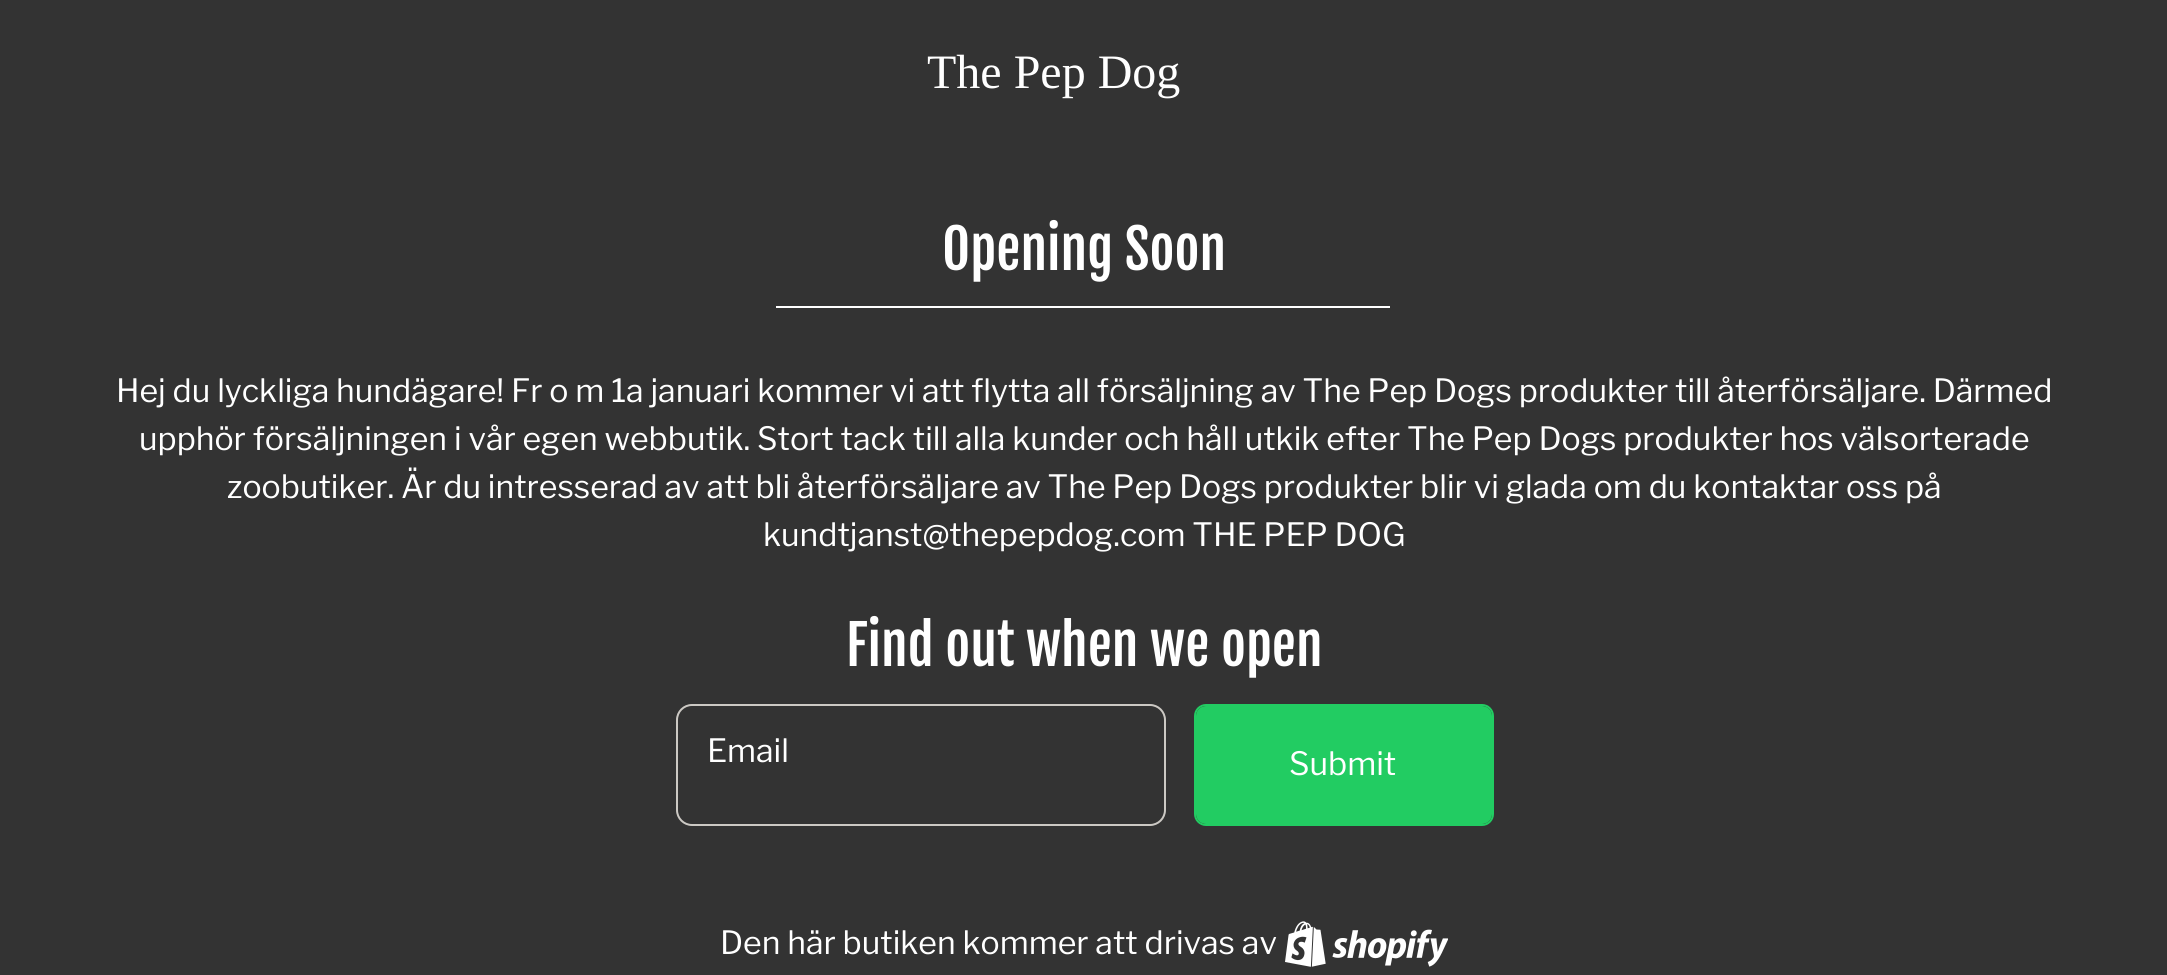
#include <cairo.h>
#include <math.h>
#include <stddef.h>

static cairo_t *ctx;

static void use_color(int r, int g, int b) {
    cairo_set_source_rgb(ctx, r / 255.0, g / 255.0, b / 255.0);
}

static void round_rect(double x, double y, double w, double h, double r) {
    cairo_new_sub_path(ctx);
    cairo_arc(ctx, x + w - r, y + h - r, r, 0, M_PI / 2);
    cairo_arc(ctx, x + r, y + h - r, r, M_PI / 2, M_PI);
    cairo_arc(ctx, x + r, y + r, r, M_PI, 1.5 * M_PI);
    cairo_arc(ctx, x + w - r, y + r, r, 1.5 * M_PI, 2 * M_PI);
    cairo_close_path(ctx);
}

static void picture(const char *path, double x, double y, double w, double h) {
    cairo_surface_t *image = cairo_image_surface_create_from_png(path);
    cairo_save(ctx);
    cairo_set_source_surface(ctx, image, x, y);
    cairo_rectangle(ctx, x, y, w, h);
    cairo_fill(ctx);
    cairo_restore(ctx);
    cairo_surface_destroy(image);
}

int main(void) {
    cairo_surface_t *surface = cairo_image_surface_create(CAIRO_FORMAT_RGB24, 2167, 975);
    ctx = cairo_create(surface);
    cairo_font_options_t *options = cairo_font_options_create();
    cairo_font_options_set_hint_metrics(options, CAIRO_HINT_METRICS_OFF);
    cairo_font_options_set_hint_style(options, CAIRO_HINT_STYLE_NONE);
    cairo_set_font_options(ctx, options);
    cairo_set_miter_limit(ctx, 4);
    use_color(51, 51, 51);
    cairo_paint(ctx);
    cairo_select_font_face(ctx, "Liberation Serif", CAIRO_FONT_SLANT_NORMAL, CAIRO_FONT_WEIGHT_NORMAL);
    cairo_set_font_size(ctx, 48);
    use_color(255, 255, 255);
    cairo_move_to(ctx, 927, 88);
    cairo_show_text(ctx, "The Pep Dog");
    cairo_select_font_face(ctx, "Fjalla One", CAIRO_FONT_SLANT_NORMAL, CAIRO_FONT_WEIGHT_NORMAL);
    cairo_set_font_size(ctx, 54);
    cairo_move_to(ctx, 942, 270);
    cairo_show_text(ctx, "Opening Soon");
    cairo_rectangle(ctx, 776, 306, 614, 2);
    cairo_fill(ctx);
    cairo_select_font_face(ctx, "Libre Franklin", CAIRO_FONT_SLANT_NORMAL, CAIRO_FONT_WEIGHT_NORMAL);
    cairo_set_font_size(ctx, 32);
    cairo_move_to(ctx, 116, 402);
    cairo_show_text(ctx, "Hej du lyckliga hundägare! Fr o m 1a januari kommer vi att flytta all försäljning av The Pep Dogs produkter till återförsäljare. Därmed");
    cairo_move_to(ctx, 139, 450);
    cairo_show_text(ctx, "upphör försäljningen i vår egen webbutik. Stort tack till alla kunder och håll utkik efter The Pep Dogs produkter hos välsorterade");
    cairo_move_to(ctx, 227, 498);
    cairo_show_text(ctx, "zoobutiker. Är du intresserad av att bli återförsäljare av The Pep Dogs produkter blir vi glada om du kontaktar oss på");
    cairo_move_to(ctx, 763, 546);
    cairo_show_text(ctx, "kundtjanst@thepepdog.com THE PEP DOG");
    cairo_select_font_face(ctx, "Fjalla One", CAIRO_FONT_SLANT_NORMAL, CAIRO_FONT_WEIGHT_NORMAL);
    cairo_set_font_size(ctx, 54);
    cairo_move_to(ctx, 846, 666);
    cairo_show_text(ctx, "Find out when we open");
    round_rect(677, 705, 488, 120, 15);
    use_color(204, 201, 196);
    cairo_stroke(ctx);
    cairo_select_font_face(ctx, "Libre Franklin", CAIRO_FONT_SLANT_NORMAL, CAIRO_FONT_WEIGHT_NORMAL);
    cairo_set_font_size(ctx, 32);
    use_color(255, 255, 255);
    cairo_move_to(ctx, 707, 762);
    cairo_show_text(ctx, "Email");
    round_rect(1195, 705, 298, 120, 11);
    use_color(34, 204, 98);
    cairo_stroke(ctx);
    round_rect(1196, 706, 296, 118, 10);
    cairo_fill(ctx);
    use_color(255, 255, 255);
    cairo_move_to(ctx, 1289, 775);
    cairo_show_text(ctx, "Submit");
    cairo_move_to(ctx, 720, 954);
    cairo_show_text(ctx, "Den här butiken kommer att drivas av");
    picture("img1.png", 1285, 921, 163, 46);
    cairo_surface_write_to_png(surface, "result.png");
    cairo_font_options_destroy(options);
    cairo_destroy(ctx);
    cairo_surface_destroy(surface);
    return 0;
}
